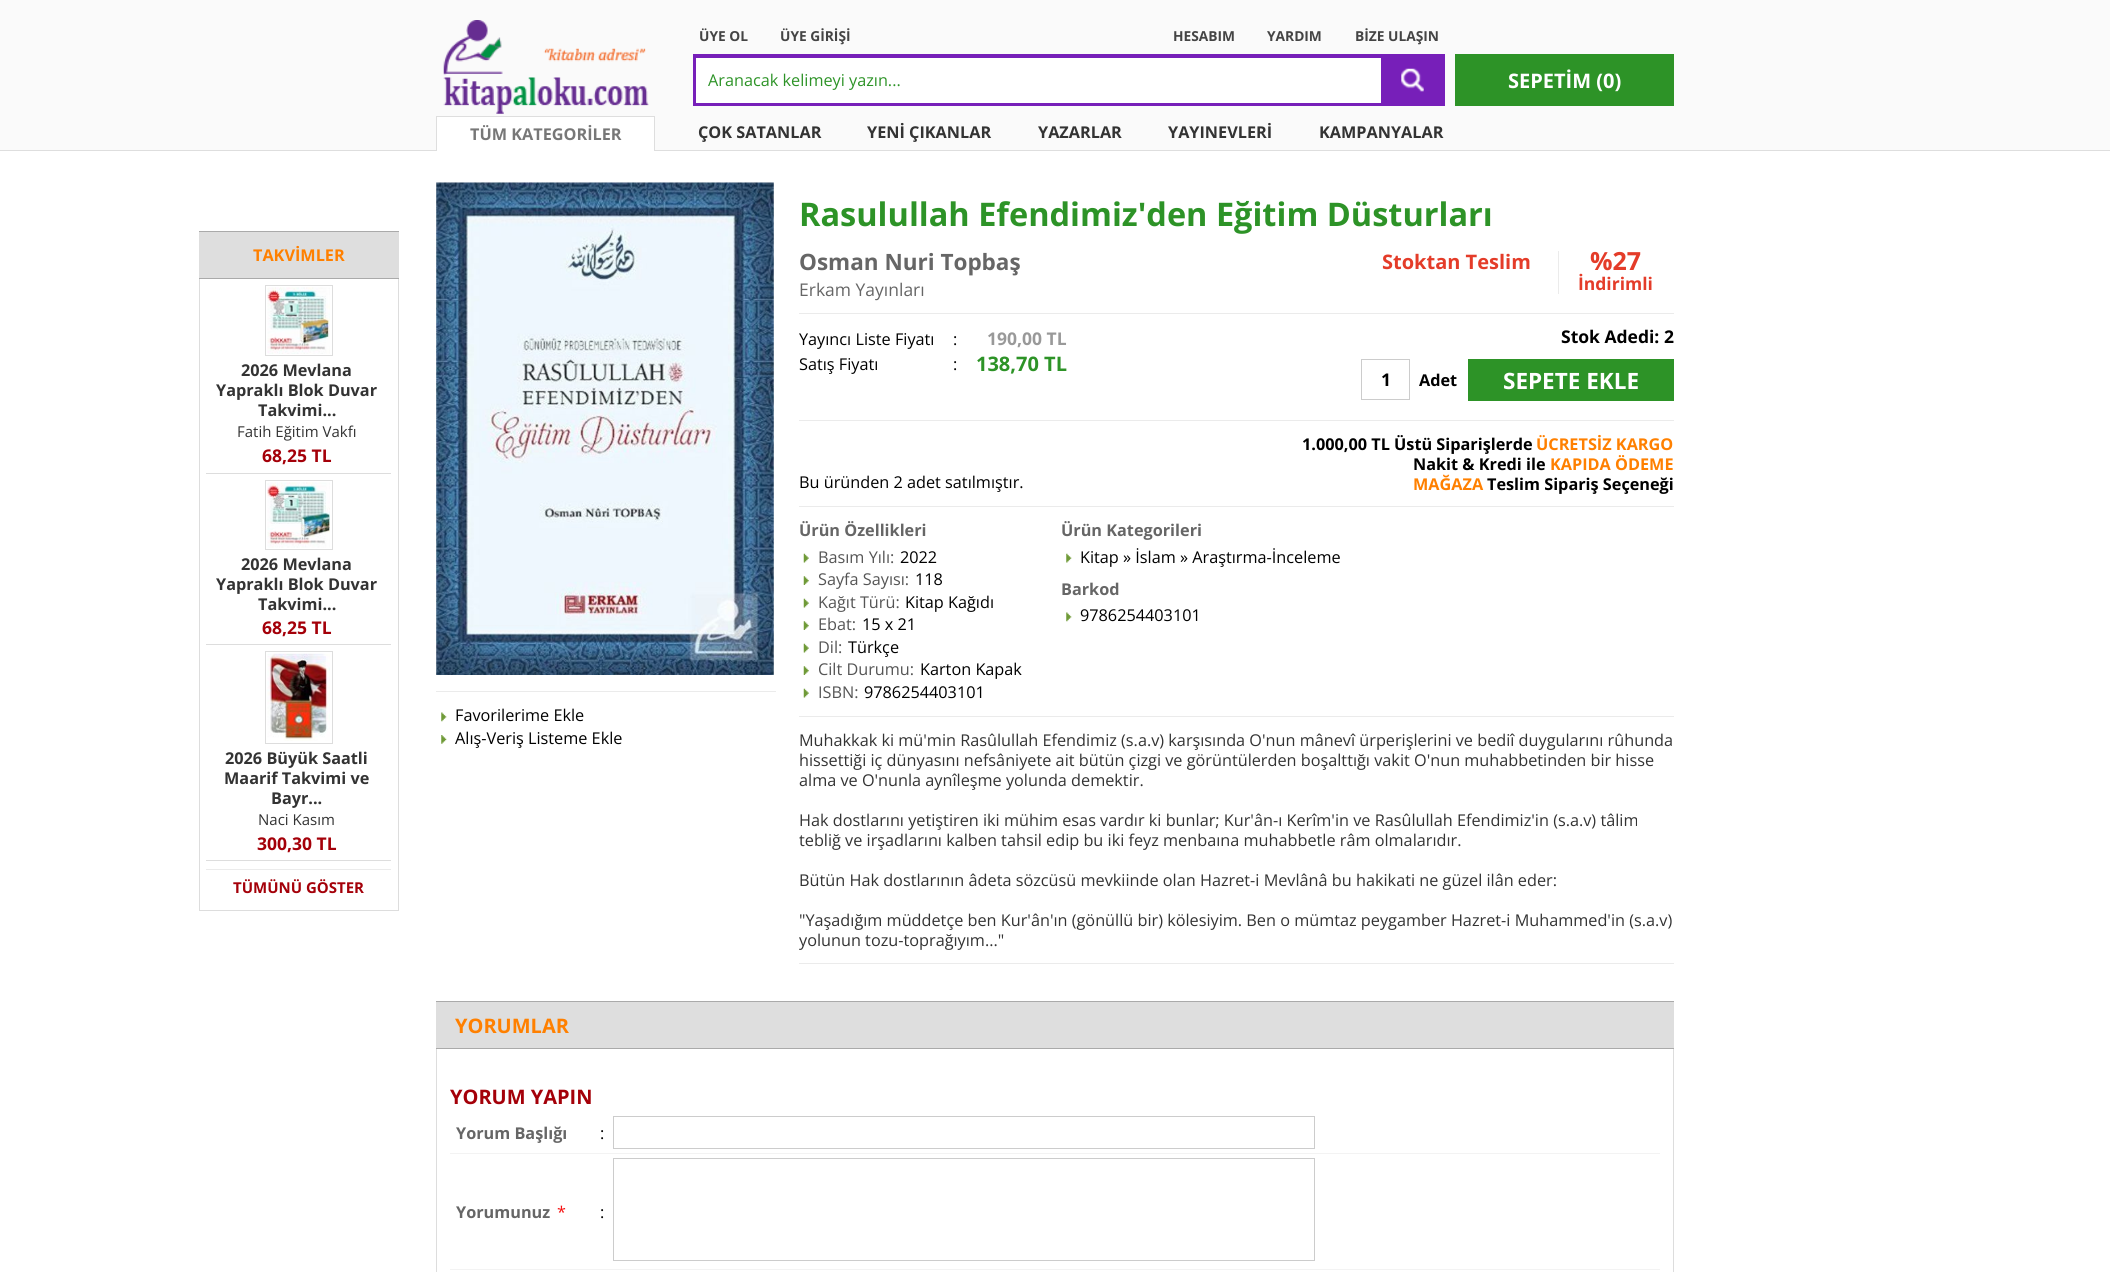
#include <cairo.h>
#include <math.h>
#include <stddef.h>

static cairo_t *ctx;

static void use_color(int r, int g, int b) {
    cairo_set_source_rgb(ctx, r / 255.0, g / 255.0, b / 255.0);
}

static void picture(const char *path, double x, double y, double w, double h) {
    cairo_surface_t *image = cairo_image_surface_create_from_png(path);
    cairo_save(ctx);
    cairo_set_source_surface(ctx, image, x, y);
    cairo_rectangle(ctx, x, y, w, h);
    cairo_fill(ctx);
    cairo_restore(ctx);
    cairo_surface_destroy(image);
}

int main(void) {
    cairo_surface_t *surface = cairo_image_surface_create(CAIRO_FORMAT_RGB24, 2110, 1272);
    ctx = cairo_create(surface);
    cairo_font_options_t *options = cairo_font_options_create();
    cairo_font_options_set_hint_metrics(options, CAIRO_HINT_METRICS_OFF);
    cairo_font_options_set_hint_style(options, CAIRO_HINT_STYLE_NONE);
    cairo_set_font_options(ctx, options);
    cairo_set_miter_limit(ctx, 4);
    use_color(255, 255, 255);
    cairo_paint(ctx);
    use_color(250, 250, 250);
    cairo_rectangle(ctx, 0, 0, 2110, 150);
    cairo_fill(ctx);
    use_color(222, 222, 222);
    cairo_rectangle(ctx, 0, 150, 2110, 1);
    cairo_fill(ctx);
    picture("img1.png", 443, 20, 206, 94);
    use_color(255, 255, 255);
    cairo_rectangle(ctx, 437, 117, 217, 34);
    cairo_fill(ctx);
    use_color(222, 222, 222);
    cairo_rectangle(ctx, 436, 116, 219, 1);
    cairo_fill(ctx);
    cairo_rectangle(ctx, 654, 116, 1, 35);
    cairo_fill(ctx);
    cairo_rectangle(ctx, 436, 116, 1, 35);
    cairo_fill(ctx);
    cairo_select_font_face(ctx, "Open Sans", CAIRO_FONT_SLANT_NORMAL, CAIRO_FONT_WEIGHT_BOLD);
    cairo_set_font_size(ctx, 16.25);
    use_color(119, 119, 119);
    cairo_move_to(ctx, 470, 140);
    cairo_show_text(ctx, "TÜM KATEGORİLER");
    cairo_set_font_size(ctx, 13.75);
    use_color(68, 68, 68);
    cairo_move_to(ctx, 699, 41);
    cairo_show_text(ctx, "ÜYE OL");
    cairo_move_to(ctx, 780, 41);
    cairo_show_text(ctx, "ÜYE GİRİŞİ");
    cairo_move_to(ctx, 1173, 41);
    cairo_show_text(ctx, "HESABIM");
    cairo_move_to(ctx, 1267, 41);
    cairo_show_text(ctx, "YARDIM");
    cairo_move_to(ctx, 1355, 41);
    cairo_show_text(ctx, "BİZE ULAŞIN");
    use_color(119, 31, 185);
    cairo_rectangle(ctx, 693, 54, 752, 52);
    cairo_fill(ctx);
    use_color(255, 255, 255);
    cairo_rectangle(ctx, 696, 58, 685, 45);
    cairo_fill(ctx);
    cairo_select_font_face(ctx, "Open Sans", CAIRO_FONT_SLANT_NORMAL, CAIRO_FONT_WEIGHT_NORMAL);
    cairo_set_font_size(ctx, 16.25);
    use_color(45, 147, 39);
    cairo_move_to(ctx, 708, 86);
    cairo_show_text(ctx, "Aranacak kelimeyi yazın...");
    picture("img2.png", 1401, 68, 23, 24);
    cairo_rectangle(ctx, 1455, 54, 219, 52);
    cairo_fill(ctx);
    cairo_select_font_face(ctx, "Open Sans", CAIRO_FONT_SLANT_NORMAL, CAIRO_FONT_WEIGHT_BOLD);
    cairo_set_font_size(ctx, 20);
    use_color(255, 255, 255);
    cairo_move_to(ctx, 1508, 88);
    cairo_show_text(ctx, "SEPETİM (0)");
    cairo_set_font_size(ctx, 16.25);
    use_color(51, 51, 51);
    cairo_move_to(ctx, 698, 138);
    cairo_show_text(ctx, "ÇOK SATANLAR");
    cairo_move_to(ctx, 867, 138);
    cairo_show_text(ctx, "YENİ ÇIKANLAR");
    cairo_move_to(ctx, 1038, 138);
    cairo_show_text(ctx, "YAZARLAR");
    cairo_move_to(ctx, 1168, 138);
    cairo_show_text(ctx, "YAYINEVLERİ");
    cairo_move_to(ctx, 1319, 138);
    cairo_show_text(ctx, "KAMPANYALAR");
    use_color(222, 222, 222);
    cairo_rectangle(ctx, 199, 232, 200, 46);
    cairo_fill(ctx);
    use_color(170, 170, 170);
    cairo_rectangle(ctx, 199, 231, 200, 1);
    cairo_fill(ctx);
    cairo_rectangle(ctx, 199, 278, 200, 1);
    cairo_fill(ctx);
    use_color(255, 128, 0);
    cairo_move_to(ctx, 253, 261);
    cairo_show_text(ctx, "TAKVİMLER");
    use_color(221, 221, 221);
    cairo_rectangle(ctx, 398, 279, 1, 632);
    cairo_fill(ctx);
    cairo_rectangle(ctx, 199, 910, 200, 1);
    cairo_fill(ctx);
    cairo_rectangle(ctx, 199, 279, 1, 632);
    cairo_fill(ctx);
    cairo_rectangle(ctx, 206, 473, 185, 1);
    cairo_fill(ctx);
    cairo_rectangle(ctx, 265.5, 285.5, 67, 70);
    cairo_set_line_width(ctx, 1);
    cairo_stroke(ctx);
    picture("img3.png", 267, 287, 63, 67);
    use_color(51, 51, 51);
    cairo_move_to(ctx, 241, 376);
    cairo_show_text(ctx, "2026 Mevlana");
    cairo_move_to(ctx, 216, 396);
    cairo_show_text(ctx, "Yapraklı Blok Duvar");
    cairo_move_to(ctx, 258, 416);
    cairo_show_text(ctx, "Takvimi...");
    cairo_select_font_face(ctx, "Open Sans", CAIRO_FONT_SLANT_NORMAL, CAIRO_FONT_WEIGHT_NORMAL);
    cairo_set_font_size(ctx, 15);
    cairo_move_to(ctx, 237, 437);
    cairo_show_text(ctx, "Fatih Eğitim Vakfı");
    cairo_select_font_face(ctx, "Open Sans", CAIRO_FONT_SLANT_NORMAL, CAIRO_FONT_WEIGHT_BOLD);
    cairo_set_font_size(ctx, 17.5);
    use_color(164, 0, 9);
    cairo_move_to(ctx, 262, 462);
    cairo_show_text(ctx, "68,25 TL");
    use_color(221, 221, 221);
    cairo_rectangle(ctx, 206, 644, 185, 1);
    cairo_fill(ctx);
    cairo_rectangle(ctx, 265.5, 480.5, 67, 69);
    cairo_stroke(ctx);
    picture("img4.png", 267, 482, 63, 66);
    cairo_set_font_size(ctx, 16.25);
    use_color(51, 51, 51);
    cairo_move_to(ctx, 241, 570);
    cairo_show_text(ctx, "2026 Mevlana");
    cairo_move_to(ctx, 216, 590);
    cairo_show_text(ctx, "Yapraklı Blok Duvar");
    cairo_move_to(ctx, 258, 610);
    cairo_show_text(ctx, "Takvimi...");
    cairo_set_font_size(ctx, 17.5);
    use_color(164, 0, 9);
    cairo_move_to(ctx, 262, 634);
    cairo_show_text(ctx, "68,25 TL");
    use_color(221, 221, 221);
    cairo_rectangle(ctx, 206, 860, 185, 1);
    cairo_fill(ctx);
    cairo_rectangle(ctx, 265.5, 651.5, 67, 92);
    cairo_stroke(ctx);
    picture("img5.png", 267, 653, 63, 88);
    cairo_set_font_size(ctx, 16.25);
    use_color(51, 51, 51);
    cairo_move_to(ctx, 225, 764);
    cairo_show_text(ctx, "2026 Büyük Saatli");
    cairo_move_to(ctx, 224, 784);
    cairo_show_text(ctx, "Maarif Takvimi ve");
    cairo_move_to(ctx, 271, 804);
    cairo_show_text(ctx, "Bayr...");
    cairo_select_font_face(ctx, "Open Sans", CAIRO_FONT_SLANT_NORMAL, CAIRO_FONT_WEIGHT_NORMAL);
    cairo_set_font_size(ctx, 15);
    cairo_move_to(ctx, 258, 825);
    cairo_show_text(ctx, "Naci Kasım");
    cairo_select_font_face(ctx, "Open Sans", CAIRO_FONT_SLANT_NORMAL, CAIRO_FONT_WEIGHT_BOLD);
    cairo_set_font_size(ctx, 17.5);
    use_color(164, 0, 9);
    cairo_move_to(ctx, 257, 850);
    cairo_show_text(ctx, "300,30 TL");
    use_color(235, 235, 235);
    cairo_rectangle(ctx, 206, 869, 185, 1);
    cairo_fill(ctx);
    cairo_set_font_size(ctx, 15);
    use_color(164, 0, 9);
    cairo_move_to(ctx, 233, 893);
    cairo_show_text(ctx, "TÜMÜNÜ GÖSTER");
    picture("img6.png", 436, 182, 338, 493);
    use_color(235, 235, 235);
    cairo_rectangle(ctx, 436, 691, 340, 1);
    cairo_fill(ctx);
    picture("img7.png", 441, 712, 6, 10);
    cairo_select_font_face(ctx, "Open Sans", CAIRO_FONT_SLANT_NORMAL, CAIRO_FONT_WEIGHT_NORMAL);
    cairo_set_font_size(ctx, 16.25);
    use_color(0, 0, 0);
    cairo_move_to(ctx, 455, 721);
    cairo_show_text(ctx, "Favorilerime Ekle");
    picture("img8.png", 441, 735, 6, 9);
    cairo_move_to(ctx, 455, 744);
    cairo_show_text(ctx, "Alış-Veriş Listeme Ekle");
    cairo_select_font_face(ctx, "Open Sans", CAIRO_FONT_SLANT_NORMAL, CAIRO_FONT_WEIGHT_BOLD);
    cairo_set_font_size(ctx, 32.5);
    use_color(45, 147, 39);
    cairo_move_to(ctx, 799, 226);
    cairo_show_text(ctx, "Rasulullah Efendimiz'den Eğitim Düsturları");
    cairo_set_font_size(ctx, 22.5);
    use_color(102, 102, 102);
    cairo_move_to(ctx, 799, 270);
    cairo_show_text(ctx, "Osman Nuri Topbaş");
    cairo_select_font_face(ctx, "Open Sans", CAIRO_FONT_SLANT_NORMAL, CAIRO_FONT_WEIGHT_NORMAL);
    cairo_set_font_size(ctx, 17.5);
    cairo_move_to(ctx, 799, 296);
    cairo_show_text(ctx, "Erkam Yayınları");
    cairo_select_font_face(ctx, "Open Sans", CAIRO_FONT_SLANT_NORMAL, CAIRO_FONT_WEIGHT_BOLD);
    cairo_set_font_size(ctx, 20);
    use_color(228, 60, 41);
    cairo_move_to(ctx, 1382, 269);
    cairo_show_text(ctx, "Stoktan Teslim");
    use_color(235, 235, 235);
    cairo_rectangle(ctx, 1558, 251, 1, 43);
    cairo_fill(ctx);
    cairo_set_font_size(ctx, 25);
    use_color(228, 60, 41);
    cairo_move_to(ctx, 1590, 270);
    cairo_show_text(ctx, "%27");
    cairo_set_font_size(ctx, 17.5);
    cairo_move_to(ctx, 1578, 290);
    cairo_show_text(ctx, "İndirimli");
    use_color(235, 235, 235);
    cairo_rectangle(ctx, 799, 313, 875, 1);
    cairo_fill(ctx);
    cairo_select_font_face(ctx, "Open Sans", CAIRO_FONT_SLANT_NORMAL, CAIRO_FONT_WEIGHT_NORMAL);
    cairo_set_font_size(ctx, 16.25);
    use_color(0, 0, 0);
    cairo_move_to(ctx, 799, 345);
    cairo_show_text(ctx, "Yayıncı Liste Fiyatı");
    cairo_move_to(ctx, 953, 345);
    cairo_show_text(ctx, ":");
    cairo_select_font_face(ctx, "Open Sans", CAIRO_FONT_SLANT_NORMAL, CAIRO_FONT_WEIGHT_BOLD);
    cairo_set_font_size(ctx, 17.5);
    use_color(153, 153, 153);
    cairo_move_to(ctx, 987, 345);
    cairo_show_text(ctx, "190,00 TL");
    cairo_select_font_face(ctx, "Open Sans", CAIRO_FONT_SLANT_NORMAL, CAIRO_FONT_WEIGHT_NORMAL);
    cairo_set_font_size(ctx, 16.25);
    use_color(0, 0, 0);
    cairo_move_to(ctx, 799, 370);
    cairo_show_text(ctx, "Satış Fiyatı");
    cairo_move_to(ctx, 953, 370);
    cairo_show_text(ctx, ":");
    cairo_select_font_face(ctx, "Open Sans", CAIRO_FONT_SLANT_NORMAL, CAIRO_FONT_WEIGHT_BOLD);
    cairo_set_font_size(ctx, 20);
    use_color(45, 147, 39);
    cairo_move_to(ctx, 976, 371);
    cairo_show_text(ctx, "138,70 TL");
    cairo_set_font_size(ctx, 17.5);
    use_color(0, 0, 0);
    cairo_move_to(ctx, 1561, 343);
    cairo_show_text(ctx, "Stok Adedi: 2");
    cairo_rectangle(ctx, 1361.5, 359.5, 48, 40);
    use_color(204, 204, 204);
    cairo_stroke(ctx);
    use_color(0, 0, 0);
    cairo_move_to(ctx, 1381, 386);
    cairo_show_text(ctx, "1");
    cairo_set_font_size(ctx, 16.25);
    cairo_move_to(ctx, 1419, 386);
    cairo_show_text(ctx, "Adet");
    use_color(45, 147, 39);
    cairo_rectangle(ctx, 1468, 359, 206, 42);
    cairo_fill(ctx);
    cairo_set_font_size(ctx, 22.5);
    use_color(255, 255, 255);
    cairo_move_to(ctx, 1503, 389);
    cairo_show_text(ctx, "SEPETE EKLE");
    use_color(235, 235, 235);
    cairo_rectangle(ctx, 799, 420, 875, 1);
    cairo_fill(ctx);
    cairo_select_font_face(ctx, "Open Sans", CAIRO_FONT_SLANT_NORMAL, CAIRO_FONT_WEIGHT_NORMAL);
    cairo_set_font_size(ctx, 16.25);
    use_color(0, 0, 0);
    cairo_move_to(ctx, 799, 488);
    cairo_show_text(ctx, "Bu üründen 2 adet satılmıştır.");
    cairo_select_font_face(ctx, "Open Sans", CAIRO_FONT_SLANT_NORMAL, CAIRO_FONT_WEIGHT_BOLD);
    cairo_move_to(ctx, 1302, 450);
    cairo_show_text(ctx, "1.000,00 TL Üstü Siparişlerde");
    use_color(255, 128, 0);
    cairo_move_to(ctx, 1536, 450);
    cairo_show_text(ctx, "ÜCRETSİZ KARGO");
    use_color(0, 0, 0);
    cairo_move_to(ctx, 1413, 470);
    cairo_show_text(ctx, "Nakit & Kredi ile");
    use_color(255, 128, 0);
    cairo_move_to(ctx, 1550, 470);
    cairo_show_text(ctx, "KAPIDA ÖDEME");
    cairo_move_to(ctx, 1413, 490);
    cairo_show_text(ctx, "MAĞAZA");
    use_color(0, 0, 0);
    cairo_move_to(ctx, 1487, 490);
    cairo_show_text(ctx, "Teslim Sipariş Seçeneği");
    use_color(235, 235, 235);
    cairo_rectangle(ctx, 799, 506, 875, 1);
    cairo_fill(ctx);
    use_color(102, 102, 102);
    cairo_move_to(ctx, 799, 536);
    cairo_show_text(ctx, "Ürün Özellikleri");
    picture("img9.png", 803, 553, 6, 10);
    cairo_select_font_face(ctx, "Open Sans", CAIRO_FONT_SLANT_NORMAL, CAIRO_FONT_WEIGHT_NORMAL);
    use_color(85, 85, 85);
    cairo_move_to(ctx, 818, 563);
    cairo_show_text(ctx, "Basım Yılı:");
    use_color(0, 0, 0);
    cairo_move_to(ctx, 900, 563);
    cairo_show_text(ctx, "2022");
    picture("img10.png", 803, 576, 6, 9);
    use_color(85, 85, 85);
    cairo_move_to(ctx, 818, 585);
    cairo_show_text(ctx, "Sayfa Sayısı:");
    use_color(0, 0, 0);
    cairo_move_to(ctx, 915, 585);
    cairo_show_text(ctx, "118");
    picture("img9.png", 803, 598, 6, 10);
    use_color(85, 85, 85);
    cairo_move_to(ctx, 818, 608);
    cairo_show_text(ctx, "Kağıt Türü:");
    use_color(0, 0, 0);
    cairo_move_to(ctx, 905, 608);
    cairo_show_text(ctx, "Kitap Kağıdı");
    picture("img10.png", 803, 621, 6, 9);
    use_color(85, 85, 85);
    cairo_move_to(ctx, 818, 630);
    cairo_show_text(ctx, "Ebat:");
    use_color(0, 0, 0);
    cairo_move_to(ctx, 862, 630);
    cairo_show_text(ctx, "15 x 21");
    picture("img9.png", 803, 643, 6, 10);
    use_color(85, 85, 85);
    cairo_move_to(ctx, 818, 653);
    cairo_show_text(ctx, "Dil:");
    use_color(0, 0, 0);
    cairo_move_to(ctx, 848, 653);
    cairo_show_text(ctx, "Türkçe");
    picture("img10.png", 803, 666, 6, 9);
    use_color(85, 85, 85);
    cairo_move_to(ctx, 818, 675);
    cairo_show_text(ctx, "Cilt Durumu:");
    use_color(0, 0, 0);
    cairo_move_to(ctx, 920, 675);
    cairo_show_text(ctx, "Karton Kapak");
    picture("img9.png", 803, 688, 6, 10);
    use_color(85, 85, 85);
    cairo_move_to(ctx, 818, 698);
    cairo_show_text(ctx, "ISBN:");
    use_color(0, 0, 0);
    cairo_move_to(ctx, 864, 698);
    cairo_show_text(ctx, "9786254403101");
    cairo_select_font_face(ctx, "Open Sans", CAIRO_FONT_SLANT_NORMAL, CAIRO_FONT_WEIGHT_BOLD);
    use_color(102, 102, 102);
    cairo_move_to(ctx, 1061, 536);
    cairo_show_text(ctx, "Ürün Kategorileri");
    picture("img11.png", 1066, 553, 6, 10);
    cairo_select_font_face(ctx, "Open Sans", CAIRO_FONT_SLANT_NORMAL, CAIRO_FONT_WEIGHT_NORMAL);
    use_color(0, 0, 0);
    cairo_move_to(ctx, 1080, 563);
    cairo_show_text(ctx, "Kitap » İslam » Araştırma-İnceleme");
    cairo_select_font_face(ctx, "Open Sans", CAIRO_FONT_SLANT_NORMAL, CAIRO_FONT_WEIGHT_BOLD);
    use_color(102, 102, 102);
    cairo_move_to(ctx, 1061, 595);
    cairo_show_text(ctx, "Barkod");
    picture("img7.png", 1066, 612, 6, 10);
    cairo_select_font_face(ctx, "Open Sans", CAIRO_FONT_SLANT_NORMAL, CAIRO_FONT_WEIGHT_NORMAL);
    use_color(0, 0, 0);
    cairo_move_to(ctx, 1080, 621);
    cairo_show_text(ctx, "9786254403101");
    use_color(235, 235, 235);
    cairo_rectangle(ctx, 799, 716, 875, 1);
    cairo_fill(ctx);
    use_color(51, 51, 51);
    cairo_move_to(ctx, 799, 746);
    cairo_show_text(ctx, "Muhakkak ki mü'min Rasûlullah Efendimiz (s.a.v) karşısında O'nun mânevî ürperişlerini ve bediî duygularını rûhunda");
    cairo_move_to(ctx, 799, 766);
    cairo_show_text(ctx, "hissettiği iç dünyasını nefsâniyete ait bütün çizgi ve görüntülerden boşalttığı vakit O'nun muhabbetinden bir hisse");
    cairo_move_to(ctx, 799, 786);
    cairo_show_text(ctx, "alma ve O'nunla aynîleşme yolunda demektir.");
    cairo_move_to(ctx, 799, 826);
    cairo_show_text(ctx, "Hak dostlarını yetiştiren iki mühim esas vardır ki bunlar; Kur'ân-ı Kerîm'in ve Rasûlullah Efendimiz'in (s.a.v) tâlim");
    cairo_move_to(ctx, 799, 846);
    cairo_show_text(ctx, "tebliğ ve irşadlarını kalben tahsil edip bu iki feyz menbaına muhabbetle râm olmalarıdır.");
    cairo_move_to(ctx, 799, 886);
    cairo_show_text(ctx, "Bütün Hak dostlarının âdeta sözcüsü mevkiinde olan Hazret-i Mevlânâ bu hakikati ne güzel ilân eder:");
    cairo_move_to(ctx, 799, 926);
    cairo_show_text(ctx, "\"Yaşadığım müddetçe ben Kur'ân'ın (gönüllü bir) kölesiyim. Ben o mümtaz peygamber Hazret-i Muhammed'in (s.a.v)");
    cairo_move_to(ctx, 799, 946);
    cairo_show_text(ctx, "yolunun tozu-toprağıyım...\"");
    use_color(235, 235, 235);
    cairo_rectangle(ctx, 799, 963, 875, 1);
    cairo_fill(ctx);
    use_color(222, 222, 222);
    cairo_rectangle(ctx, 436, 1002, 1238, 46);
    cairo_fill(ctx);
    use_color(170, 170, 170);
    cairo_rectangle(ctx, 436, 1001, 1238, 1);
    cairo_fill(ctx);
    cairo_rectangle(ctx, 436, 1048, 1238, 1);
    cairo_fill(ctx);
    cairo_select_font_face(ctx, "Open Sans", CAIRO_FONT_SLANT_NORMAL, CAIRO_FONT_WEIGHT_BOLD);
    cairo_set_font_size(ctx, 20);
    use_color(255, 128, 0);
    cairo_move_to(ctx, 455, 1033);
    cairo_show_text(ctx, "YORUMLAR");
    use_color(221, 221, 221);
    cairo_rectangle(ctx, 1673, 1049, 1, 223);
    cairo_fill(ctx);
    cairo_rectangle(ctx, 436, 1049, 1, 223);
    cairo_fill(ctx);
    use_color(164, 0, 9);
    cairo_move_to(ctx, 450, 1104);
    cairo_show_text(ctx, "YORUM YAPIN");
    use_color(243, 243, 243);
    cairo_rectangle(ctx, 450, 1153, 1210, 1);
    cairo_fill(ctx);
    cairo_set_font_size(ctx, 16.25);
    use_color(102, 102, 102);
    cairo_move_to(ctx, 456, 1139);
    cairo_show_text(ctx, "Yorum Başlığı");
    cairo_select_font_face(ctx, "Open Sans", CAIRO_FONT_SLANT_NORMAL, CAIRO_FONT_WEIGHT_NORMAL);
    use_color(0, 0, 0);
    cairo_move_to(ctx, 600, 1139);
    cairo_show_text(ctx, ":");
    cairo_rectangle(ctx, 613.5, 1116.5, 701, 32);
    use_color(204, 204, 204);
    cairo_stroke(ctx);
    use_color(243, 243, 243);
    cairo_rectangle(ctx, 450, 1269, 1210, 1);
    cairo_fill(ctx);
    cairo_select_font_face(ctx, "Open Sans", CAIRO_FONT_SLANT_NORMAL, CAIRO_FONT_WEIGHT_BOLD);
    use_color(102, 102, 102);
    cairo_move_to(ctx, 456, 1218);
    cairo_show_text(ctx, "Yorumunuz");
    cairo_select_font_face(ctx, "Open Sans", CAIRO_FONT_SLANT_NORMAL, CAIRO_FONT_WEIGHT_NORMAL);
    use_color(246, 14, 14);
    cairo_move_to(ctx, 557, 1218);
    cairo_show_text(ctx, "*");
    use_color(0, 0, 0);
    cairo_move_to(ctx, 600, 1218);
    cairo_show_text(ctx, ":");
    cairo_rectangle(ctx, 613.5, 1158.5, 701, 102);
    use_color(204, 204, 204);
    cairo_stroke(ctx);
    cairo_surface_write_to_png(surface, "result.png");
    cairo_font_options_destroy(options);
    cairo_destroy(ctx);
    cairo_surface_destroy(surface);
    return 0;
}
